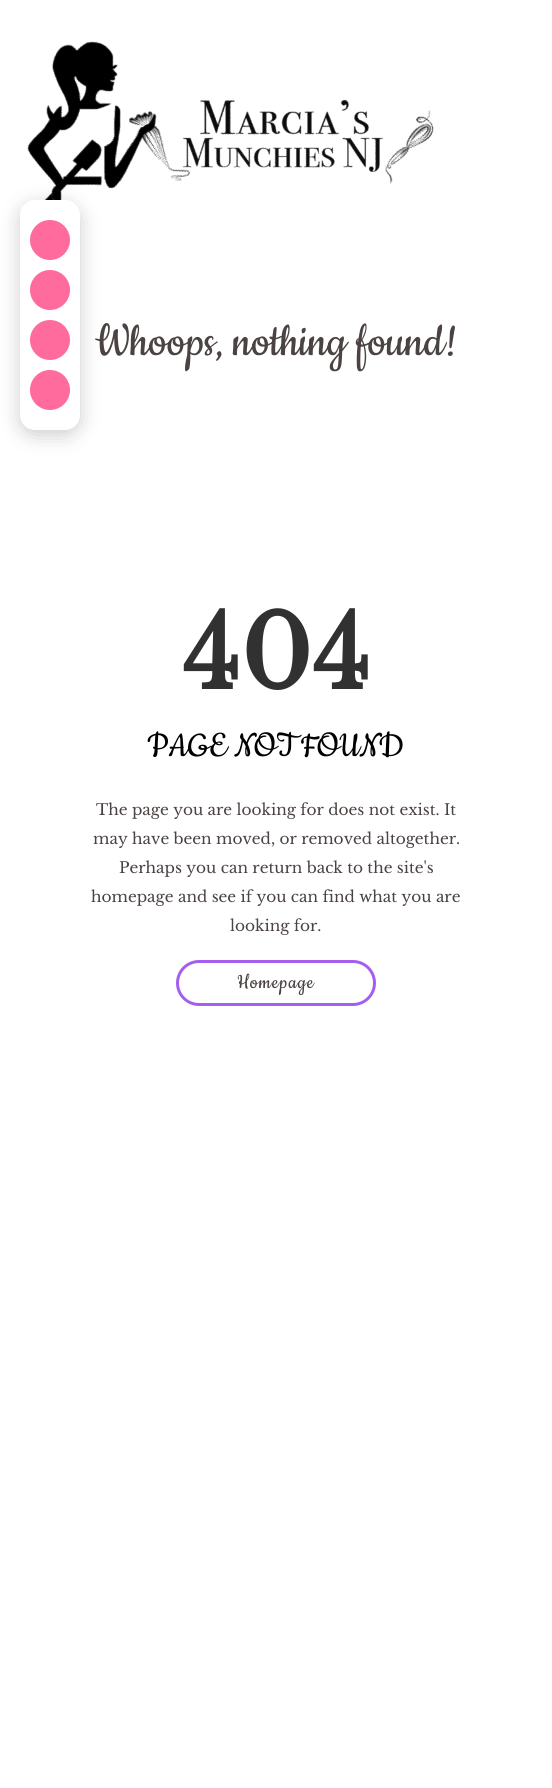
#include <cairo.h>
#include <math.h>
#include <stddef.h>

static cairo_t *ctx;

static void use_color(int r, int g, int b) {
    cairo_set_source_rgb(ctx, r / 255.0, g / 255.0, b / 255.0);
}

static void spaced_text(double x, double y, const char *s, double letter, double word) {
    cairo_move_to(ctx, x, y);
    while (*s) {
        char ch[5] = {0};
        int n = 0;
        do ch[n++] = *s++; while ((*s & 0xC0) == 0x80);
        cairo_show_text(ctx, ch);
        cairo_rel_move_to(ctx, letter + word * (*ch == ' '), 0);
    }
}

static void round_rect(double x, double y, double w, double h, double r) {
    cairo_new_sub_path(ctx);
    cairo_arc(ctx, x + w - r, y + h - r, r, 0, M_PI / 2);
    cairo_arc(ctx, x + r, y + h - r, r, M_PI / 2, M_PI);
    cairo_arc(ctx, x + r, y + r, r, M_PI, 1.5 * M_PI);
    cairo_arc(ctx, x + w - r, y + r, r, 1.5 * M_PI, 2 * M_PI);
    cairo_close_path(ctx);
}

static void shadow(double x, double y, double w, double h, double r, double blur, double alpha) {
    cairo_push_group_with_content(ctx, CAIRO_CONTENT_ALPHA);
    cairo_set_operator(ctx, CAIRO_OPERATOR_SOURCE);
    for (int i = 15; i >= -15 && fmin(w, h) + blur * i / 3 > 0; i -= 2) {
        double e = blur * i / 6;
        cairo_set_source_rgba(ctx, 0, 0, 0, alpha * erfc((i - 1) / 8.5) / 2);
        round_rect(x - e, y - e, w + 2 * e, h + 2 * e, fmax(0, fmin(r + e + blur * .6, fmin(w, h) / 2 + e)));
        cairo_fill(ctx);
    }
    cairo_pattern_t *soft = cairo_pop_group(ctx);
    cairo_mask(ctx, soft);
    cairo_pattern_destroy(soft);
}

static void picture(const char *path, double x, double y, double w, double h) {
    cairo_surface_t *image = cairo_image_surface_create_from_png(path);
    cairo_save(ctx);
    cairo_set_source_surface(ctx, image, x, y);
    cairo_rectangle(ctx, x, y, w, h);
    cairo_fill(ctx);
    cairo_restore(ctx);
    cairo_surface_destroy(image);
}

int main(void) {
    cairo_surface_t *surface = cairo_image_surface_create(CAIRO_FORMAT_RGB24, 552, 1788);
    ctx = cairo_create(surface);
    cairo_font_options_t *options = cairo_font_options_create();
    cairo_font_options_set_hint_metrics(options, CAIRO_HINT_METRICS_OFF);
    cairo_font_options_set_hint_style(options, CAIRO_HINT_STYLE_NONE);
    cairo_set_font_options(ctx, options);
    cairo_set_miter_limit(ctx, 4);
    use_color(255, 255, 255);
    cairo_paint(ctx);
    picture("img1.png", 27, 41, 407, 159);
    use_color(0, 0, 0);
    shadow(20, 205, 60, 230, 15, 10, 0.2);
    use_color(255, 255, 255);
    round_rect(20, 200, 60, 230, 15);
    cairo_fill(ctx);
    use_color(255, 107, 157);
    cairo_arc(ctx, 50, 240, 20, 0, 2 * M_PI);
    cairo_fill(ctx);
    cairo_arc(ctx, 50, 290, 20, 0, 2 * M_PI);
    cairo_fill(ctx);
    cairo_arc(ctx, 50, 340, 20, 0, 2 * M_PI);
    cairo_fill(ctx);
    cairo_arc(ctx, 50, 390, 20, 0, 2 * M_PI);
    cairo_fill(ctx);
    cairo_select_font_face(ctx, "Cookie", CAIRO_FONT_SLANT_NORMAL, CAIRO_FONT_WEIGHT_NORMAL);
    cairo_set_font_size(ctx, 51);
    use_color(75, 67, 66);
    cairo_move_to(ctx, 95, 355);
    cairo_show_text(ctx, "Whoops, nothing found!");
    cairo_select_font_face(ctx, "Libre Baskerville", CAIRO_FONT_SLANT_NORMAL, CAIRO_FONT_WEIGHT_BOLD);
    cairo_set_font_size(ctx, 100);
    use_color(49, 49, 49);
    cairo_move_to(ctx, 182, 689);
    cairo_show_text(ctx, "404");
    cairo_select_font_face(ctx, "Cookie", CAIRO_FONT_SLANT_NORMAL, CAIRO_FONT_WEIGHT_NORMAL);
    cairo_set_font_size(ctx, 39);
    use_color(0, 0, 0);
    cairo_move_to(ctx, 147, 756);
    cairo_show_text(ctx, "PAGE NOT FOUND");
    cairo_select_font_face(ctx, "Libre Baskerville", CAIRO_FONT_SLANT_NORMAL, CAIRO_FONT_WEIGHT_NORMAL);
    cairo_set_font_size(ctx, 15.3);
    use_color(75, 67, 66);
    cairo_move_to(ctx, 96, 815);
    cairo_show_text(ctx, "The page you are looking for does not exist. It");
    cairo_move_to(ctx, 93, 844);
    cairo_show_text(ctx, "may have been moved, or removed altogether.");
    cairo_move_to(ctx, 119, 873);
    cairo_show_text(ctx, "Perhaps you can return back to the site's");
    cairo_move_to(ctx, 91, 902);
    cairo_show_text(ctx, "homepage and see if you can find what you are");
    cairo_move_to(ctx, 230, 931);
    cairo_show_text(ctx, "looking for.");
    round_rect(177.5, 961.5, 197, 43, 21.5);
    use_color(165, 95, 239);
    cairo_set_line_width(ctx, 3);
    cairo_stroke(ctx);
    cairo_select_font_face(ctx, "Cookie", CAIRO_FONT_SLANT_NORMAL, CAIRO_FONT_WEIGHT_NORMAL);
    cairo_set_font_size(ctx, 22);
    use_color(75, 67, 66);
    spaced_text(237, 988, "Homepage", 1, 0);
    cairo_surface_write_to_png(surface, "result.png");
    cairo_font_options_destroy(options);
    cairo_destroy(ctx);
    cairo_surface_destroy(surface);
    return 0;
}
